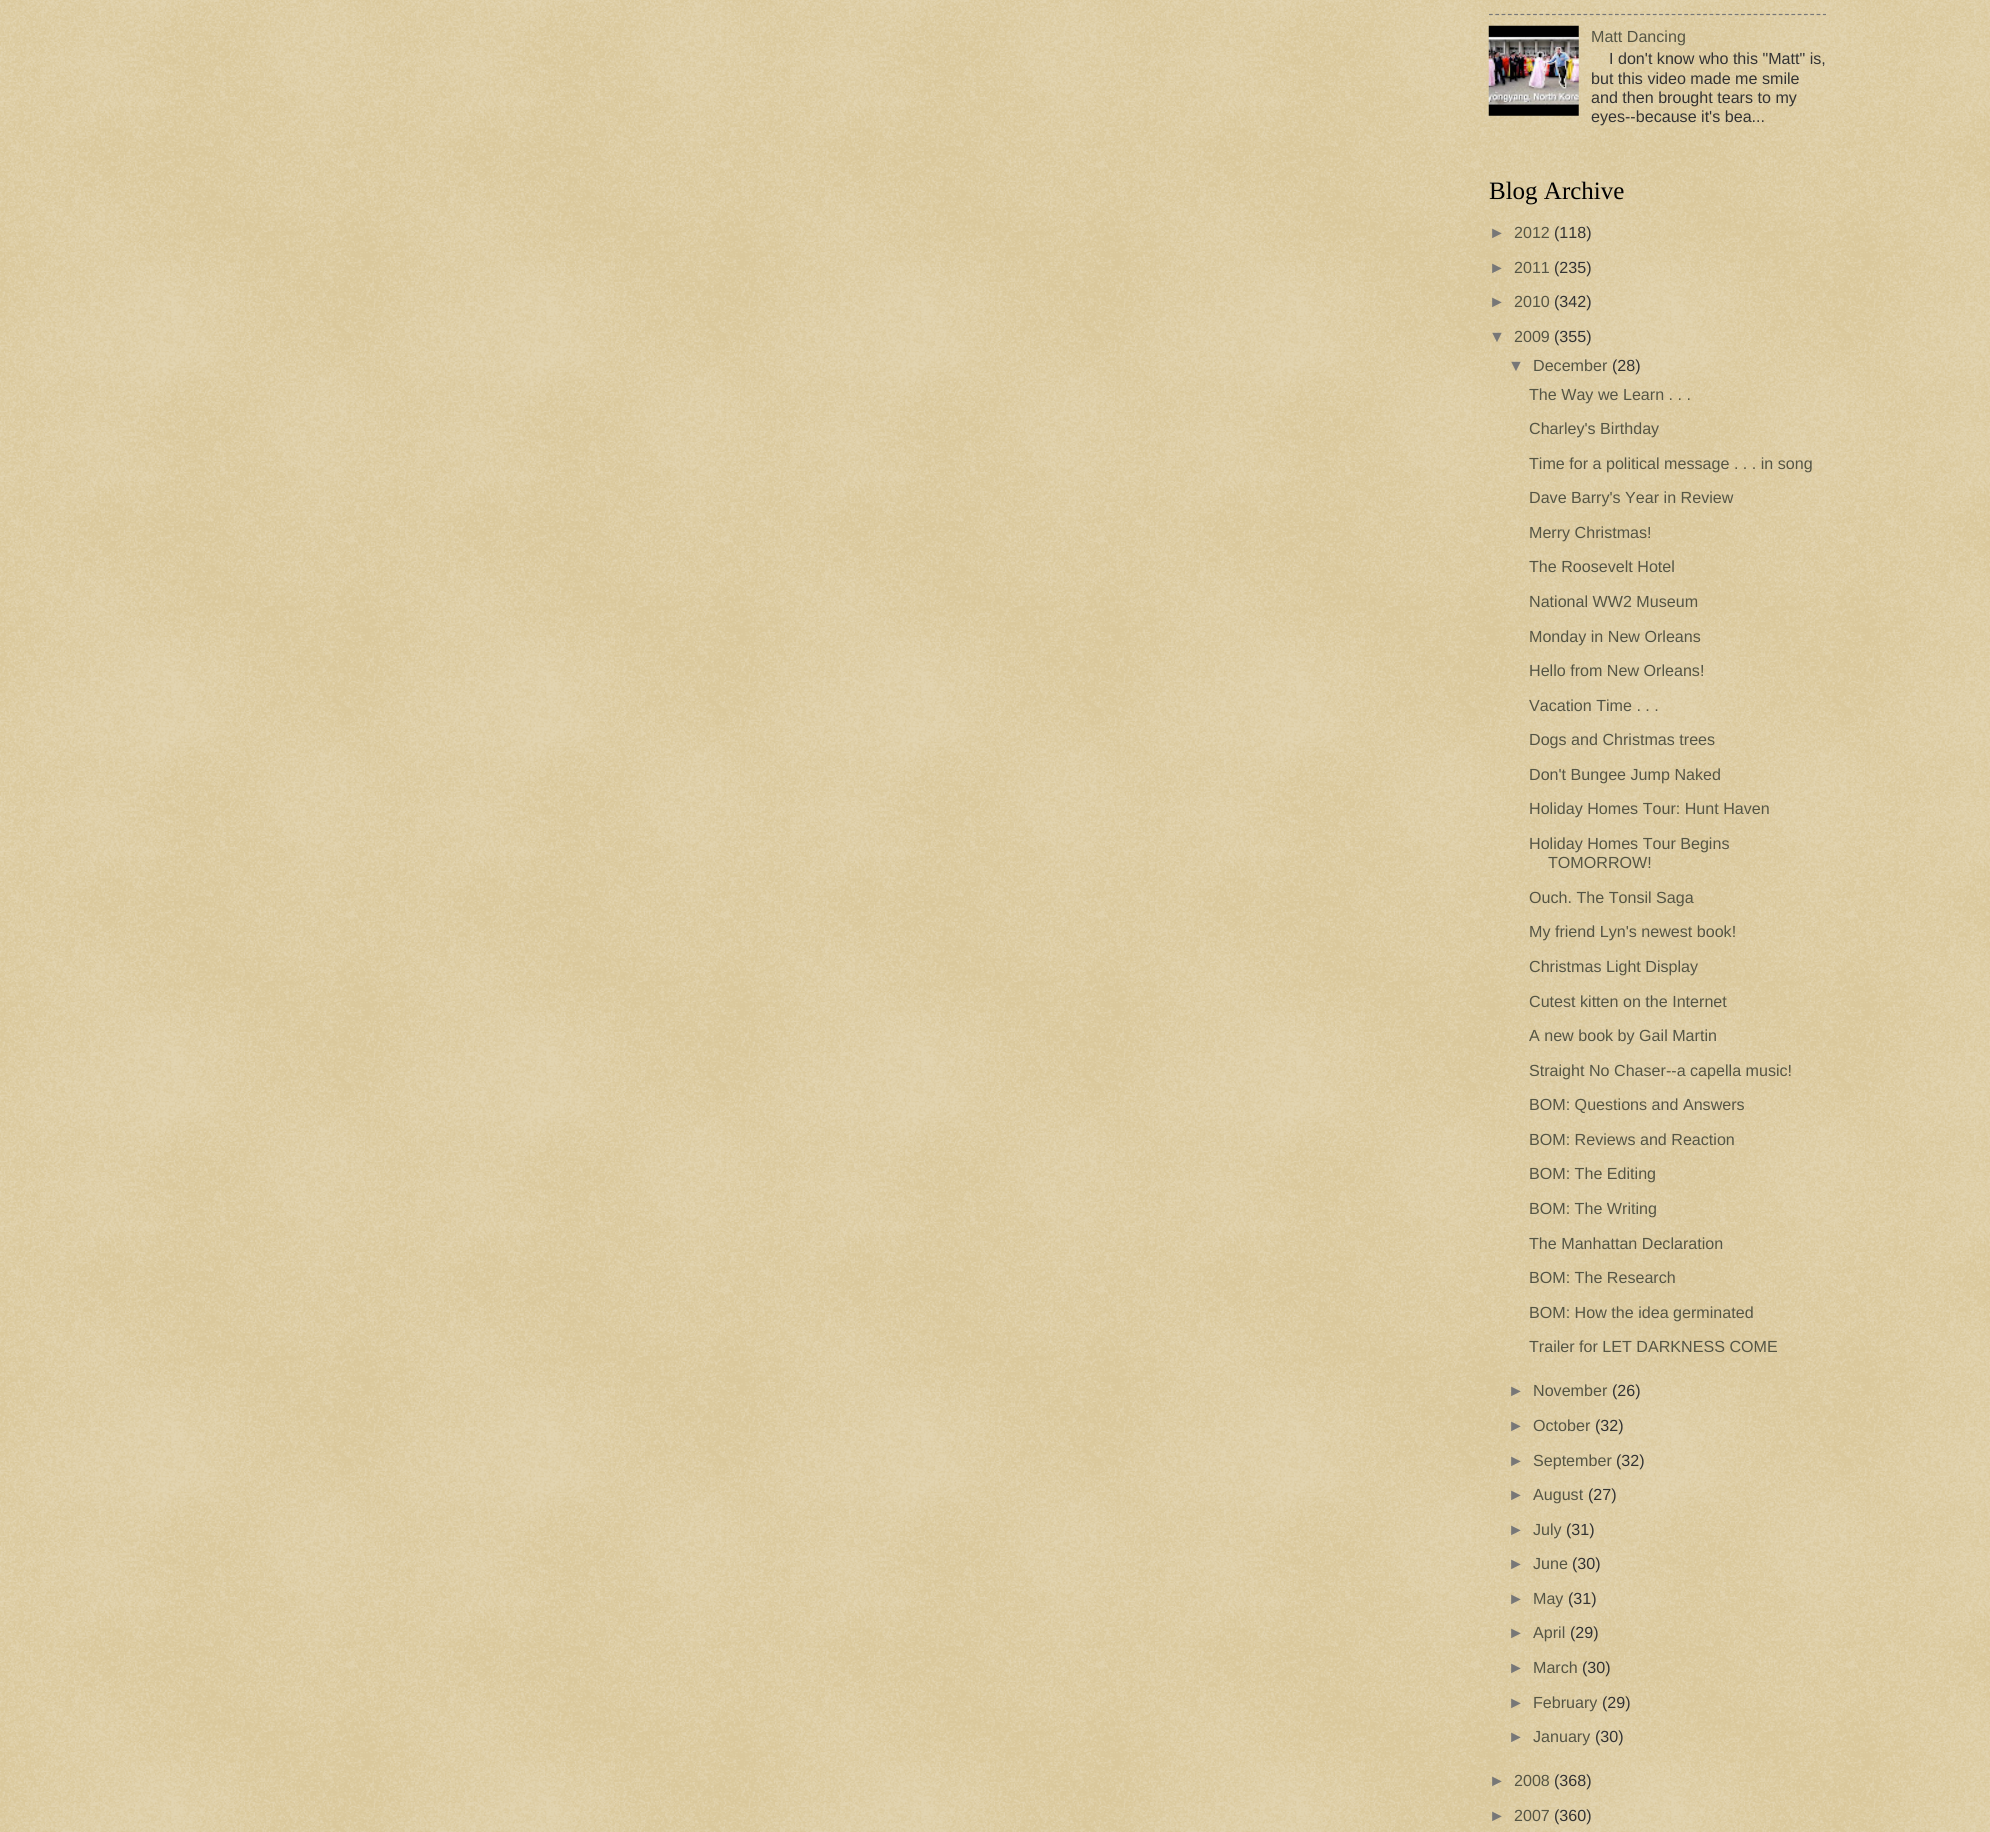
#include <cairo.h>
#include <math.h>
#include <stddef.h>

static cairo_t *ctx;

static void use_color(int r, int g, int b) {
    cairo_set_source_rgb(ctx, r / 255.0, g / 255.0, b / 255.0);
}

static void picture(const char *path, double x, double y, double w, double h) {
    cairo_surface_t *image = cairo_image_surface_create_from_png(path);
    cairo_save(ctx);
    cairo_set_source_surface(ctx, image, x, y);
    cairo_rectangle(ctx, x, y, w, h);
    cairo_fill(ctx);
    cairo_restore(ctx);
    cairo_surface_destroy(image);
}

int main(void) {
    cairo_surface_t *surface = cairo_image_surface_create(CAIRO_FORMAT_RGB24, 1990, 1832);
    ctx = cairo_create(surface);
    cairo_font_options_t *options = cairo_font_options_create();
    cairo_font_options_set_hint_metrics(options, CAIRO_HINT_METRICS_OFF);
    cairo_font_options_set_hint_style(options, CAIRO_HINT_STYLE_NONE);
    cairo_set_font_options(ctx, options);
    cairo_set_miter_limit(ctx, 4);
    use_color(192, 161, 84);
    cairo_paint(ctx);
    picture("img1.png", 0, 0, 1990, 1832);
    cairo_new_path(ctx);
    cairo_move_to(ctx, 1489, 14.5);
    cairo_line_to(ctx, 1826, 14.5);
    use_color(119, 119, 119);
    cairo_set_line_width(ctx, 1.2);
    cairo_set_dash(ctx, (double[]){3.75, 2.55}, 2, 0);
    cairo_stroke(ctx);
    picture("img2.png", 1488, 25, 91, 91);
    cairo_select_font_face(ctx, "Liberation Sans", CAIRO_FONT_SLANT_NORMAL, CAIRO_FONT_WEIGHT_NORMAL);
    cairo_set_font_size(ctx, 16.1);
    use_color(85, 85, 68);
    cairo_move_to(ctx, 1591, 42);
    cairo_show_text(ctx, "Matt Dancing");
    use_color(51, 51, 51);
    cairo_move_to(ctx, 1609, 64);
    cairo_show_text(ctx, "I don't know who this \"Matt\" is,");
    cairo_move_to(ctx, 1591, 84);
    cairo_show_text(ctx, "but this video made me smile");
    cairo_move_to(ctx, 1591, 103);
    cairo_show_text(ctx, "and then brought tears to my");
    cairo_move_to(ctx, 1591, 122);
    cairo_show_text(ctx, "eyes--because it's bea...");
    cairo_select_font_face(ctx, "Liberation Serif", CAIRO_FONT_SLANT_NORMAL, CAIRO_FONT_WEIGHT_NORMAL);
    cairo_set_font_size(ctx, 25);
    use_color(0, 0, 0);
    cairo_move_to(ctx, 1489, 199);
    cairo_show_text(ctx, "Blog Archive");
    cairo_select_font_face(ctx, "Liberation Sans", CAIRO_FONT_SLANT_NORMAL, CAIRO_FONT_WEIGHT_NORMAL);
    cairo_set_font_size(ctx, 16.1);
    use_color(119, 119, 119);
    cairo_move_to(ctx, 1489, 238);
    cairo_show_text(ctx, "►");
    use_color(85, 85, 68);
    cairo_move_to(ctx, 1514, 238);
    cairo_show_text(ctx, "2012");
    use_color(51, 51, 51);
    cairo_move_to(ctx, 1554, 238);
    cairo_show_text(ctx, "(118)");
    use_color(119, 119, 119);
    cairo_move_to(ctx, 1489, 273);
    cairo_show_text(ctx, "►");
    use_color(85, 85, 68);
    cairo_move_to(ctx, 1514, 273);
    cairo_show_text(ctx, "2011");
    use_color(51, 51, 51);
    cairo_move_to(ctx, 1554, 273);
    cairo_show_text(ctx, "(235)");
    use_color(119, 119, 119);
    cairo_move_to(ctx, 1489, 307);
    cairo_show_text(ctx, "►");
    use_color(85, 85, 68);
    cairo_move_to(ctx, 1514, 307);
    cairo_show_text(ctx, "2010");
    use_color(51, 51, 51);
    cairo_move_to(ctx, 1554, 307);
    cairo_show_text(ctx, "(342)");
    use_color(119, 119, 119);
    cairo_move_to(ctx, 1489, 342);
    cairo_show_text(ctx, "▼");
    use_color(85, 85, 68);
    cairo_move_to(ctx, 1514, 342);
    cairo_show_text(ctx, "2009");
    use_color(51, 51, 51);
    cairo_move_to(ctx, 1554, 342);
    cairo_show_text(ctx, "(355)");
    use_color(119, 119, 119);
    cairo_move_to(ctx, 1508, 371);
    cairo_show_text(ctx, "▼");
    use_color(85, 85, 68);
    cairo_move_to(ctx, 1533, 371);
    cairo_show_text(ctx, "December");
    use_color(51, 51, 51);
    cairo_move_to(ctx, 1612, 371);
    cairo_show_text(ctx, "(28)");
    use_color(85, 85, 68);
    cairo_move_to(ctx, 1529, 400);
    cairo_show_text(ctx, "The Way we Learn . . .");
    cairo_move_to(ctx, 1529, 434);
    cairo_show_text(ctx, "Charley's Birthday");
    cairo_move_to(ctx, 1529, 469);
    cairo_show_text(ctx, "Time for a political message . . . in song");
    cairo_move_to(ctx, 1529, 503);
    cairo_show_text(ctx, "Dave Barry's Year in Review");
    cairo_move_to(ctx, 1529, 538);
    cairo_show_text(ctx, "Merry Christmas!");
    cairo_move_to(ctx, 1529, 572);
    cairo_show_text(ctx, "The Roosevelt Hotel");
    cairo_move_to(ctx, 1529, 607);
    cairo_show_text(ctx, "National WW2 Museum");
    cairo_move_to(ctx, 1529, 642);
    cairo_show_text(ctx, "Monday in New Orleans");
    cairo_move_to(ctx, 1529, 676);
    cairo_show_text(ctx, "Hello from New Orleans!");
    cairo_move_to(ctx, 1529, 711);
    cairo_show_text(ctx, "Vacation Time . . .");
    cairo_move_to(ctx, 1529, 745);
    cairo_show_text(ctx, "Dogs and Christmas trees");
    cairo_move_to(ctx, 1529, 780);
    cairo_show_text(ctx, "Don't Bungee Jump Naked");
    cairo_move_to(ctx, 1529, 814);
    cairo_show_text(ctx, "Holiday Homes Tour: Hunt Haven");
    cairo_move_to(ctx, 1529, 849);
    cairo_show_text(ctx, "Holiday Homes Tour Begins");
    cairo_move_to(ctx, 1548, 868);
    cairo_show_text(ctx, "TOMORROW!");
    cairo_move_to(ctx, 1529, 903);
    cairo_show_text(ctx, "Ouch. The Tonsil Saga");
    cairo_move_to(ctx, 1529, 937);
    cairo_show_text(ctx, "My friend Lyn's newest book!");
    cairo_move_to(ctx, 1529, 972);
    cairo_show_text(ctx, "Christmas Light Display");
    cairo_move_to(ctx, 1529, 1007);
    cairo_show_text(ctx, "Cutest kitten on the Internet");
    cairo_move_to(ctx, 1529, 1041);
    cairo_show_text(ctx, "A new book by Gail Martin");
    cairo_move_to(ctx, 1529, 1076);
    cairo_show_text(ctx, "Straight No Chaser--a capella music!");
    cairo_move_to(ctx, 1529, 1110);
    cairo_show_text(ctx, "BOM: Questions and Answers");
    cairo_move_to(ctx, 1529, 1145);
    cairo_show_text(ctx, "BOM: Reviews and Reaction");
    cairo_move_to(ctx, 1529, 1179);
    cairo_show_text(ctx, "BOM: The Editing");
    cairo_move_to(ctx, 1529, 1214);
    cairo_show_text(ctx, "BOM: The Writing");
    cairo_move_to(ctx, 1529, 1249);
    cairo_show_text(ctx, "The Manhattan Declaration");
    cairo_move_to(ctx, 1529, 1283);
    cairo_show_text(ctx, "BOM: The Research");
    cairo_move_to(ctx, 1529, 1318);
    cairo_show_text(ctx, "BOM: How the idea germinated");
    cairo_move_to(ctx, 1529, 1352);
    cairo_show_text(ctx, "Trailer for LET DARKNESS COME");
    use_color(119, 119, 119);
    cairo_move_to(ctx, 1508, 1396);
    cairo_show_text(ctx, "►");
    use_color(85, 85, 68);
    cairo_move_to(ctx, 1533, 1396);
    cairo_show_text(ctx, "November");
    use_color(51, 51, 51);
    cairo_move_to(ctx, 1612, 1396);
    cairo_show_text(ctx, "(26)");
    use_color(119, 119, 119);
    cairo_move_to(ctx, 1508, 1431);
    cairo_show_text(ctx, "►");
    use_color(85, 85, 68);
    cairo_move_to(ctx, 1533, 1431);
    cairo_show_text(ctx, "October");
    use_color(51, 51, 51);
    cairo_move_to(ctx, 1595, 1431);
    cairo_show_text(ctx, "(32)");
    use_color(119, 119, 119);
    cairo_move_to(ctx, 1508, 1466);
    cairo_show_text(ctx, "►");
    use_color(85, 85, 68);
    cairo_move_to(ctx, 1533, 1466);
    cairo_show_text(ctx, "September");
    use_color(51, 51, 51);
    cairo_move_to(ctx, 1616, 1466);
    cairo_show_text(ctx, "(32)");
    use_color(119, 119, 119);
    cairo_move_to(ctx, 1508, 1500);
    cairo_show_text(ctx, "►");
    use_color(85, 85, 68);
    cairo_move_to(ctx, 1533, 1500);
    cairo_show_text(ctx, "August");
    use_color(51, 51, 51);
    cairo_move_to(ctx, 1588, 1500);
    cairo_show_text(ctx, "(27)");
    use_color(119, 119, 119);
    cairo_move_to(ctx, 1508, 1535);
    cairo_show_text(ctx, "►");
    use_color(85, 85, 68);
    cairo_move_to(ctx, 1533, 1535);
    cairo_show_text(ctx, "July");
    use_color(51, 51, 51);
    cairo_move_to(ctx, 1566, 1535);
    cairo_show_text(ctx, "(31)");
    use_color(119, 119, 119);
    cairo_move_to(ctx, 1508, 1569);
    cairo_show_text(ctx, "►");
    use_color(85, 85, 68);
    cairo_move_to(ctx, 1533, 1569);
    cairo_show_text(ctx, "June");
    use_color(51, 51, 51);
    cairo_move_to(ctx, 1572, 1569);
    cairo_show_text(ctx, "(30)");
    use_color(119, 119, 119);
    cairo_move_to(ctx, 1508, 1604);
    cairo_show_text(ctx, "►");
    use_color(85, 85, 68);
    cairo_move_to(ctx, 1533, 1604);
    cairo_show_text(ctx, "May");
    use_color(51, 51, 51);
    cairo_move_to(ctx, 1568, 1604);
    cairo_show_text(ctx, "(31)");
    use_color(119, 119, 119);
    cairo_move_to(ctx, 1508, 1638);
    cairo_show_text(ctx, "►");
    use_color(85, 85, 68);
    cairo_move_to(ctx, 1533, 1638);
    cairo_show_text(ctx, "April");
    use_color(51, 51, 51);
    cairo_move_to(ctx, 1570, 1638);
    cairo_show_text(ctx, "(29)");
    use_color(119, 119, 119);
    cairo_move_to(ctx, 1508, 1673);
    cairo_show_text(ctx, "►");
    use_color(85, 85, 68);
    cairo_move_to(ctx, 1533, 1673);
    cairo_show_text(ctx, "March");
    use_color(51, 51, 51);
    cairo_move_to(ctx, 1582, 1673);
    cairo_show_text(ctx, "(30)");
    use_color(119, 119, 119);
    cairo_move_to(ctx, 1508, 1708);
    cairo_show_text(ctx, "►");
    use_color(85, 85, 68);
    cairo_move_to(ctx, 1533, 1708);
    cairo_show_text(ctx, "February");
    use_color(51, 51, 51);
    cairo_move_to(ctx, 1602, 1708);
    cairo_show_text(ctx, "(29)");
    use_color(119, 119, 119);
    cairo_move_to(ctx, 1508, 1742);
    cairo_show_text(ctx, "►");
    use_color(85, 85, 68);
    cairo_move_to(ctx, 1533, 1742);
    cairo_show_text(ctx, "January");
    use_color(51, 51, 51);
    cairo_move_to(ctx, 1595, 1742);
    cairo_show_text(ctx, "(30)");
    use_color(119, 119, 119);
    cairo_move_to(ctx, 1489, 1786);
    cairo_show_text(ctx, "►");
    use_color(85, 85, 68);
    cairo_move_to(ctx, 1514, 1786);
    cairo_show_text(ctx, "2008");
    use_color(51, 51, 51);
    cairo_move_to(ctx, 1554, 1786);
    cairo_show_text(ctx, "(368)");
    use_color(119, 119, 119);
    cairo_move_to(ctx, 1489, 1821);
    cairo_show_text(ctx, "►");
    use_color(85, 85, 68);
    cairo_move_to(ctx, 1514, 1821);
    cairo_show_text(ctx, "2007");
    use_color(51, 51, 51);
    cairo_move_to(ctx, 1554, 1821);
    cairo_show_text(ctx, "(360)");
    cairo_surface_write_to_png(surface, "result.png");
    cairo_font_options_destroy(options);
    cairo_destroy(ctx);
    cairo_surface_destroy(surface);
    return 0;
}
